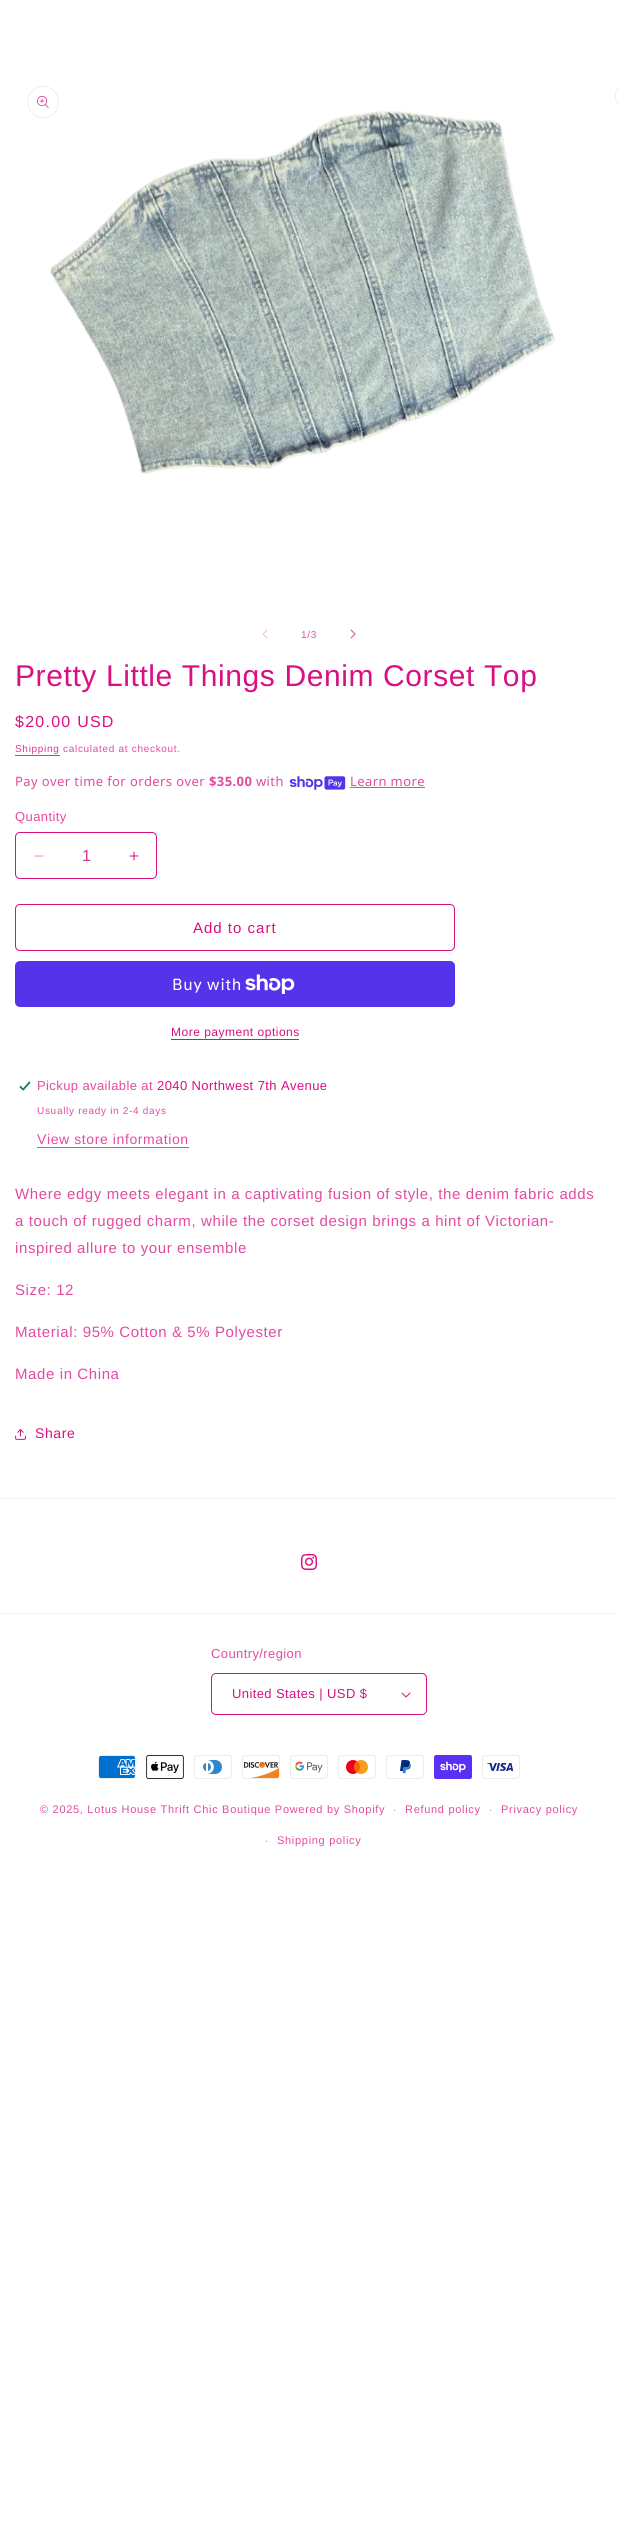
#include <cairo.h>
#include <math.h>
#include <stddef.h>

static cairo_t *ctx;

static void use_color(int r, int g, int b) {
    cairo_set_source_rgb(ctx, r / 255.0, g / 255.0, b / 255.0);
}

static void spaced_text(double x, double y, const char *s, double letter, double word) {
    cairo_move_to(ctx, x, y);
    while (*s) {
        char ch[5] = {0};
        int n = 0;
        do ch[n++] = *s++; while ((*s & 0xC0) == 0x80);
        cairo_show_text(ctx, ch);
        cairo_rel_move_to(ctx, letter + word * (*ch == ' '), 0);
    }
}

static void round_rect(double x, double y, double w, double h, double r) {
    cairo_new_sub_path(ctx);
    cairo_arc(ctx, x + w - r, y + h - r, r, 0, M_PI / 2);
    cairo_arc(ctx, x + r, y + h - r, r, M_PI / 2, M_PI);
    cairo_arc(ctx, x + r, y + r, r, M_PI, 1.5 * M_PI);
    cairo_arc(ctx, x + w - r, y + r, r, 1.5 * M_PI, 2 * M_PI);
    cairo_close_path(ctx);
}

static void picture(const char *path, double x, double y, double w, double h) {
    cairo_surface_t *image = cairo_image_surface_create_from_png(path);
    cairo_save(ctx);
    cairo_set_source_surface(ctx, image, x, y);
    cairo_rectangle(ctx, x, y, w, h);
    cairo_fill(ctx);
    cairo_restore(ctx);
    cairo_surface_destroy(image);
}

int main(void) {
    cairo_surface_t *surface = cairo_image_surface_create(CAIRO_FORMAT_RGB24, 618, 2535);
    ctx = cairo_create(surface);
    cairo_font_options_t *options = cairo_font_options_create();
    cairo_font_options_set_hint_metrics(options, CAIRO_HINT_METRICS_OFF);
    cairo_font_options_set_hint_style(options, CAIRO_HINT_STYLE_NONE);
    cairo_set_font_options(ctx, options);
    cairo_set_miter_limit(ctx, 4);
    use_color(255, 255, 255);
    cairo_paint(ctx);
    picture("img2.png", 50, 110, 505, 364);
    cairo_arc(ctx, 43, 102, 15.5, 0, 2 * M_PI);
    use_color(251, 231, 243);
    cairo_set_line_width(ctx, 1);
    cairo_stroke(ctx);
    picture("img1.png", 37, 96, 12, 12);
    round_rect(615.5, 80.5, 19, 31, 15.5);
    cairo_stroke(ctx);
    picture("img3.png", 262, 629, 6, 10);
    cairo_select_font_face(ctx, "Liberation Sans", CAIRO_FONT_SLANT_NORMAL, CAIRO_FONT_WEIGHT_NORMAL);
    cairo_set_font_size(ctx, 10);
    use_color(227, 75, 161);
    spaced_text(301, 638, "1/3", 0.7, 0);
    picture("img4.png", 350, 629, 6, 10);
    cairo_set_font_size(ctx, 30);
    use_color(217, 15, 130);
    spaced_text(15, 686, "Pretty Little Things Denim Corset Top", 0.6, 0);
    cairo_set_font_size(ctx, 16);
    spaced_text(15, 727, "$20.00 USD", 1.25, 0);
    cairo_set_font_size(ctx, 10);
    use_color(223, 51, 149);
    spaced_text(15, 752, "Shipping", 0.7, 0);
    cairo_rectangle(ctx, 15, 755, 45, 1);
    cairo_fill(ctx);
    use_color(227, 75, 161);
    spaced_text(63, 752, "calculated at checkout.", 0.7, 0);
    cairo_select_font_face(ctx, "Noto Sans", CAIRO_FONT_SLANT_NORMAL, CAIRO_FONT_WEIGHT_NORMAL);
    cairo_set_font_size(ctx, 13);
    spaced_text(15, 786, "Pay over time for orders over", 0.4, 0);
    cairo_select_font_face(ctx, "Noto Sans", CAIRO_FONT_SLANT_NORMAL, CAIRO_FONT_WEIGHT_BOLD);
    spaced_text(209, 786, "$35.00", 0.4, 0);
    cairo_select_font_face(ctx, "Noto Sans", CAIRO_FONT_SLANT_NORMAL, CAIRO_FONT_WEIGHT_NORMAL);
    spaced_text(256, 786, "with", 0.4, 0);
    picture("img5.png", 289, 776, 57, 14);
    spaced_text(350, 786, "Learn more", 0.4, 0);
    cairo_rectangle(ctx, 350, 787, 75, 1);
    cairo_fill(ctx);
    cairo_select_font_face(ctx, "Liberation Sans", CAIRO_FONT_SLANT_NORMAL, CAIRO_FONT_WEIGHT_NORMAL);
    spaced_text(15, 821, "Quantity", 0.4, 0);
    picture("img6.png", 34, 855, 10, 2);
    picture("img7.png", 129, 851, 10, 10);
    round_rect(15.5, 832.5, 141, 46, 4.5);
    use_color(217, 15, 130);
    cairo_stroke(ctx);
    cairo_set_font_size(ctx, 16);
    use_color(223, 51, 149);
    cairo_move_to(ctx, 82, 861);
    cairo_show_text(ctx, "1");
    round_rect(15.5, 904.5, 439, 46, 4.5);
    use_color(217, 15, 130);
    cairo_stroke(ctx);
    cairo_set_font_size(ctx, 15);
    spaced_text(193, 933, "Add to cart", 1, 0);
    use_color(84, 51, 235);
    round_rect(15, 961, 440, 46, 5);
    cairo_fill(ctx);
    cairo_select_font_face(ctx, "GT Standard", CAIRO_FONT_SLANT_NORMAL, CAIRO_FONT_WEIGHT_NORMAL);
    cairo_set_font_size(ctx, 16);
    use_color(255, 255, 255);
    spaced_text(172, 990, "Buy with", 0.6, 0);
    picture("img8.png", 245, 974, 50, 20);
    cairo_select_font_face(ctx, "Liberation Sans", CAIRO_FONT_SLANT_NORMAL, CAIRO_FONT_WEIGHT_NORMAL);
    cairo_set_font_size(ctx, 12);
    use_color(217, 15, 130);
    spaced_text(171, 1036, "More payment options", 0.5, 0);
    cairo_rectangle(ctx, 171, 1039, 128, 1);
    cairo_fill(ctx);
    picture("img9.png", 19, 1081, 12, 10);
    cairo_set_font_size(ctx, 13);
    use_color(227, 75, 161);
    spaced_text(37, 1090, "Pickup available at", 0.4, 0);
    use_color(217, 15, 130);
    spaced_text(157, 1090, "2040 Northwest 7th Avenue", 0.4, 0);
    cairo_set_font_size(ctx, 10);
    use_color(227, 75, 161);
    spaced_text(37, 1114, "Usually ready in 2-4 days", 0.7, 0);
    cairo_set_font_size(ctx, 14);
    spaced_text(37, 1144, "View store information", 0.6, 0);
    cairo_rectangle(ctx, 37, 1147, 152, 1);
    cairo_fill(ctx);
    cairo_set_font_size(ctx, 15);
    spaced_text(15, 1199, "Where edgy meets elegant in a captivating fusion of style, the denim fabric adds", 0.6, 0);
    spaced_text(15, 1226, "a touch of rugged charm, while the corset design brings a hint of Victorian-", 0.6, 0);
    spaced_text(15, 1253, "inspired allure to your ensemble", 0.6, 0);
    spaced_text(15, 1295, "Size: 12", 0.6, 0);
    spaced_text(15, 1337, "Material: 95% Cotton & 5% Polyester", 0.6, 0);
    spaced_text(15, 1379, "Made in China", 0.6, 0);
    picture("img10.png", 15, 1429, 11, 11);
    cairo_set_font_size(ctx, 14);
    use_color(217, 15, 130);
    spaced_text(35, 1438, "Share", 0.6, 0);
    use_color(252, 236, 245);
    cairo_rectangle(ctx, 0, 1498, 618, 1);
    cairo_fill(ctx);
    picture("img11.png", 301, 1554, 16, 16);
    cairo_rectangle(ctx, 0, 1613, 618, 1);
    cairo_fill(ctx);
    cairo_set_font_size(ctx, 13);
    use_color(227, 75, 161);
    spaced_text(211, 1658, "Country/region", 0.4, 0);
    picture("img12.png", 401, 1692, 10, 6);
    round_rect(211.5, 1673.5, 215, 41, 4.5);
    use_color(217, 15, 130);
    cairo_stroke(ctx);
    spaced_text(232, 1698, "United States | USD $", 0.4, 0);
    picture("img13.png", 98, 1755, 38, 24);
    picture("img14.png", 146, 1755, 38, 24);
    picture("img15.png", 194, 1755, 38, 24);
    picture("img16.png", 242, 1755, 38, 24);
    picture("img17.png", 290, 1755, 38, 24);
    picture("img18.png", 338, 1755, 38, 24);
    picture("img19.png", 386, 1755, 38, 24);
    picture("img20.png", 434, 1755, 38, 24);
    picture("img21.png", 482, 1755, 38, 24);
    cairo_set_font_size(ctx, 11);
    use_color(227, 75, 161);
    spaced_text(40, 1813, "© 2025, Lotus House Thrift Chic Boutique Powered by Shopify", 0.7, 0);
    cairo_set_font_size(ctx, 10);
    spaced_text(393, 1813, "·", 0.7, 0);
    cairo_set_font_size(ctx, 11);
    spaced_text(405, 1813, "Refund policy", 0.7, 0);
    cairo_set_font_size(ctx, 10);
    spaced_text(489, 1813, "·", 0.7, 0);
    cairo_set_font_size(ctx, 11);
    spaced_text(501, 1813, "Privacy policy", 0.7, 0);
    cairo_set_font_size(ctx, 10);
    spaced_text(265, 1844, "·", 0.7, 0);
    cairo_set_font_size(ctx, 11);
    spaced_text(277, 1844, "Shipping policy", 0.7, 0);
    cairo_surface_write_to_png(surface, "result.png");
    cairo_font_options_destroy(options);
    cairo_destroy(ctx);
    cairo_surface_destroy(surface);
    return 0;
}
